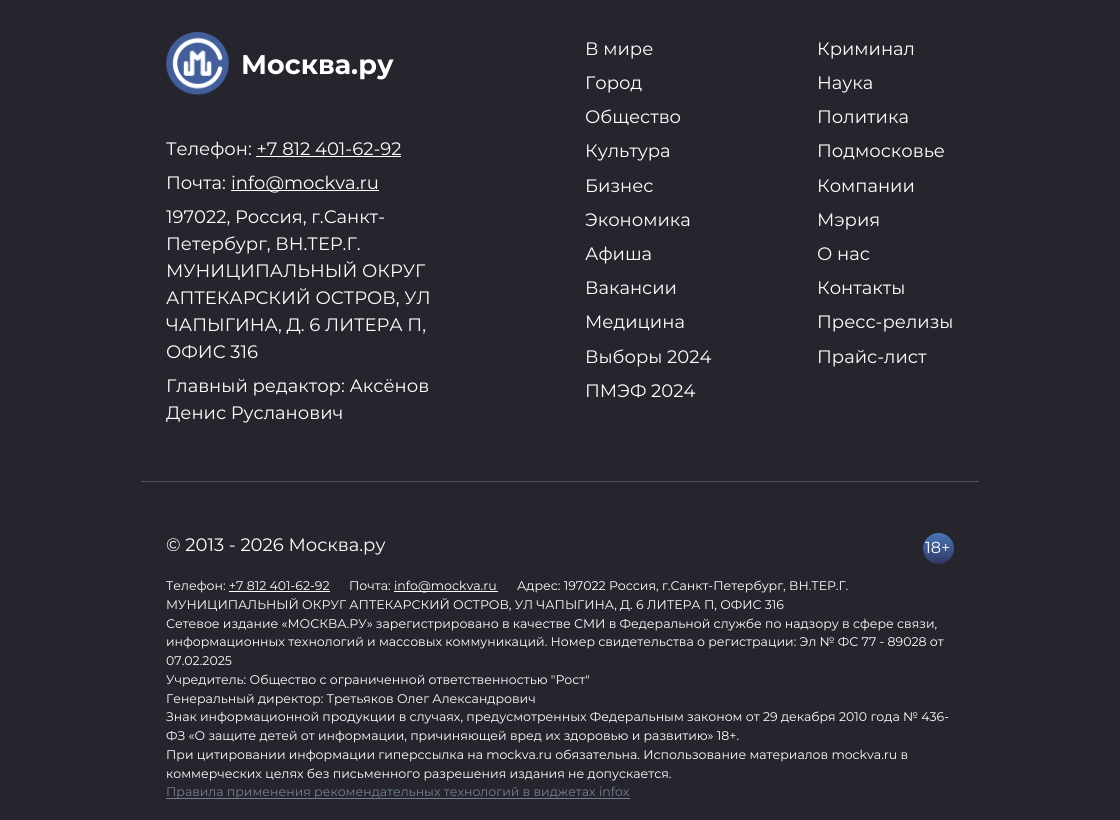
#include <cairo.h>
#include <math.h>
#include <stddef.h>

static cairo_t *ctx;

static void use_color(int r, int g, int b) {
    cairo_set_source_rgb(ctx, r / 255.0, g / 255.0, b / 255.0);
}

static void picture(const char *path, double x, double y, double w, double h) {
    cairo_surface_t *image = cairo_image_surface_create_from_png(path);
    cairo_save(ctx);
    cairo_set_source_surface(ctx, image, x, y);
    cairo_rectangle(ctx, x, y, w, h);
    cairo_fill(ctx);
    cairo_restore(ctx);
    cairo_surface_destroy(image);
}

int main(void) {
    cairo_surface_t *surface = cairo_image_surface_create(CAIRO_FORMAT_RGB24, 1120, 820);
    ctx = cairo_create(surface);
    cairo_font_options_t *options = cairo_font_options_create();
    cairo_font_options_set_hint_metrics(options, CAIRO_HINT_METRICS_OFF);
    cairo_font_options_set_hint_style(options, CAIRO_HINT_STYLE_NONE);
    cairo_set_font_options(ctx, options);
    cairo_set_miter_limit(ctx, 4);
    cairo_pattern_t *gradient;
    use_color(38, 37, 45);
    cairo_paint(ctx);
    use_color(81, 81, 87);
    cairo_rectangle(ctx, 141, 481, 838, 1);
    cairo_fill(ctx);
    picture("img1.png", 166, 32, 63, 63);
    cairo_select_font_face(ctx, "Montserrat", CAIRO_FONT_SLANT_NORMAL, CAIRO_FONT_WEIGHT_BOLD);
    cairo_set_font_size(ctx, 27);
    use_color(255, 255, 255);
    cairo_move_to(ctx, 241, 74);
    cairo_show_text(ctx, "Москва.ру");
    cairo_select_font_face(ctx, "Montserrat", CAIRO_FONT_SLANT_NORMAL, CAIRO_FONT_WEIGHT_NORMAL);
    cairo_set_font_size(ctx, 18);
    cairo_move_to(ctx, 166, 155);
    cairo_show_text(ctx, "Телефон: +7 812 401-62-92");
    cairo_rectangle(ctx, 256, 156, 145, 1);
    cairo_fill(ctx);
    cairo_move_to(ctx, 166, 189);
    cairo_show_text(ctx, "Почта:");
    cairo_rectangle(ctx, 231, 190, 148, 1);
    cairo_fill(ctx);
    cairo_move_to(ctx, 231, 189);
    cairo_show_text(ctx, "info@mockva.ru");
    cairo_move_to(ctx, 166, 223);
    cairo_show_text(ctx, "197022, Россия, г.Санкт-");
    cairo_move_to(ctx, 166, 250);
    cairo_show_text(ctx, "Петербург, ВН.ТЕР.Г.");
    cairo_move_to(ctx, 166, 277);
    cairo_show_text(ctx, "МУНИЦИПАЛЬНЫЙ ОКРУГ");
    cairo_move_to(ctx, 166, 304);
    cairo_show_text(ctx, "АПТЕКАРСКИЙ ОСТРОВ, УЛ");
    cairo_move_to(ctx, 166, 331);
    cairo_show_text(ctx, "ЧАПЫГИНА, Д. 6 ЛИТЕРА П,");
    cairo_move_to(ctx, 166, 358);
    cairo_show_text(ctx, "ОФИС 316");
    cairo_move_to(ctx, 166, 392);
    cairo_show_text(ctx, "Главный редактор: Аксёнов");
    cairo_move_to(ctx, 166, 419);
    cairo_show_text(ctx, "Денис Русланович");
    cairo_move_to(ctx, 585, 55);
    cairo_show_text(ctx, "В мире");
    cairo_move_to(ctx, 585, 89);
    cairo_show_text(ctx, "Город");
    cairo_move_to(ctx, 585, 123);
    cairo_show_text(ctx, "Общество");
    cairo_move_to(ctx, 585, 157);
    cairo_show_text(ctx, "Культура");
    cairo_move_to(ctx, 585, 192);
    cairo_show_text(ctx, "Бизнес");
    cairo_move_to(ctx, 585, 226);
    cairo_show_text(ctx, "Экономика");
    cairo_move_to(ctx, 585, 260);
    cairo_show_text(ctx, "Афиша");
    cairo_move_to(ctx, 585, 294);
    cairo_show_text(ctx, "Вакансии");
    cairo_move_to(ctx, 585, 328);
    cairo_show_text(ctx, "Медицина");
    cairo_move_to(ctx, 585, 363);
    cairo_show_text(ctx, "Выборы 2024");
    cairo_move_to(ctx, 585, 397);
    cairo_show_text(ctx, "ПМЭФ 2024");
    cairo_move_to(ctx, 817, 55);
    cairo_show_text(ctx, "Криминал");
    cairo_move_to(ctx, 817, 89);
    cairo_show_text(ctx, "Наука");
    cairo_move_to(ctx, 817, 123);
    cairo_show_text(ctx, "Политика");
    cairo_move_to(ctx, 817, 157);
    cairo_show_text(ctx, "Подмосковье");
    cairo_move_to(ctx, 817, 192);
    cairo_show_text(ctx, "Компании");
    cairo_move_to(ctx, 817, 226);
    cairo_show_text(ctx, "Мэрия");
    cairo_move_to(ctx, 817, 260);
    cairo_show_text(ctx, "О нас");
    cairo_move_to(ctx, 817, 294);
    cairo_show_text(ctx, "Контакты");
    cairo_move_to(ctx, 817, 328);
    cairo_show_text(ctx, "Пресс-релизы");
    cairo_move_to(ctx, 817, 363);
    cairo_show_text(ctx, "Прайс-лист");
    cairo_move_to(ctx, 166, 551);
    cairo_show_text(ctx, "© 2013 - 2026 Москва.ру");
    gradient = cairo_pattern_create_linear(938, 533, 938, 564);
    cairo_pattern_add_color_stop_rgba(gradient, 0, 0.275, 0.463, 0.718, 1);
    cairo_pattern_add_color_stop_rgba(gradient, 1, 0.2, 0.216, 0.4, 1);
    cairo_set_source(ctx, gradient);
    cairo_pattern_destroy(gradient);
    cairo_new_path(ctx);
    cairo_arc(ctx, 938.5, 548.5, 15.5, 0, 2 * M_PI);
    cairo_fill(ctx);
    cairo_set_font_size(ctx, 16);
    use_color(255, 255, 255);
    cairo_move_to(ctx, 925, 553);
    cairo_show_text(ctx, "18+");
    cairo_set_font_size(ctx, 12.5);
    cairo_move_to(ctx, 166, 590);
    cairo_show_text(ctx, "Телефон: +7 812 401-62-92");
    cairo_move_to(ctx, 349, 590);
    cairo_show_text(ctx, "Почта:");
    cairo_rectangle(ctx, 394, 591, 104, 1);
    cairo_fill(ctx);
    cairo_move_to(ctx, 394, 590);
    cairo_show_text(ctx, "info@mockva.ru");
    cairo_move_to(ctx, 517, 590);
    cairo_show_text(ctx, "Адрес: 197022 Россия, г.Санкт-Петербург, ВН.ТЕР.Г.");
    cairo_rectangle(ctx, 229, 591, 101, 1);
    cairo_fill(ctx);
    cairo_move_to(ctx, 166, 609);
    cairo_show_text(ctx, "МУНИЦИПАЛЬНЫЙ ОКРУГ АПТЕКАРСКИЙ ОСТРОВ, УЛ ЧАПЫГИНА, Д. 6 ЛИТЕРА П, ОФИС 316");
    cairo_move_to(ctx, 166, 628);
    cairo_show_text(ctx, "Сетевое издание «МОСКВА.РУ» зарегистрировано в качестве СМИ в Федеральной службе по надзору в сфере связи,");
    cairo_move_to(ctx, 166, 646);
    cairo_show_text(ctx, "информационных технологий и массовых коммуникаций. Номер свидетельства о регистрации: Эл № ФС 77 - 89028 от");
    cairo_move_to(ctx, 166, 665);
    cairo_show_text(ctx, "07.02.2025");
    cairo_move_to(ctx, 166, 684);
    cairo_show_text(ctx, "Учредитель: Общество с ограниченной ответственностью \"Рост\"");
    cairo_move_to(ctx, 166, 703);
    cairo_show_text(ctx, "Генеральный директор: Третьяков Олег Александрович");
    cairo_move_to(ctx, 166, 721);
    cairo_show_text(ctx, "Знак информационной продукции в случаях, предусмотренных Федеральным законом от 29 декабря 2010 года № 436-");
    cairo_move_to(ctx, 166, 740);
    cairo_show_text(ctx, "ФЗ «О защите детей от информации, причиняющей вред их здоровью и развитию» 18+.");
    cairo_move_to(ctx, 166, 759);
    cairo_show_text(ctx, "При цитировании информации гиперссылка на mockva.ru обязательна. Использование материалов mockva.ru в");
    cairo_move_to(ctx, 166, 778);
    cairo_show_text(ctx, "коммерческих целях без письменного разрешения издания не допускается.");
    use_color(112, 129, 147);
    cairo_rectangle(ctx, 166, 798, 464, 1);
    cairo_fill(ctx);
    cairo_move_to(ctx, 166, 796);
    cairo_show_text(ctx, "Правила применения рекомендательных технологий в виджетах infox");
    cairo_surface_write_to_png(surface, "result.png");
    cairo_font_options_destroy(options);
    cairo_destroy(ctx);
    cairo_surface_destroy(surface);
    return 0;
}
